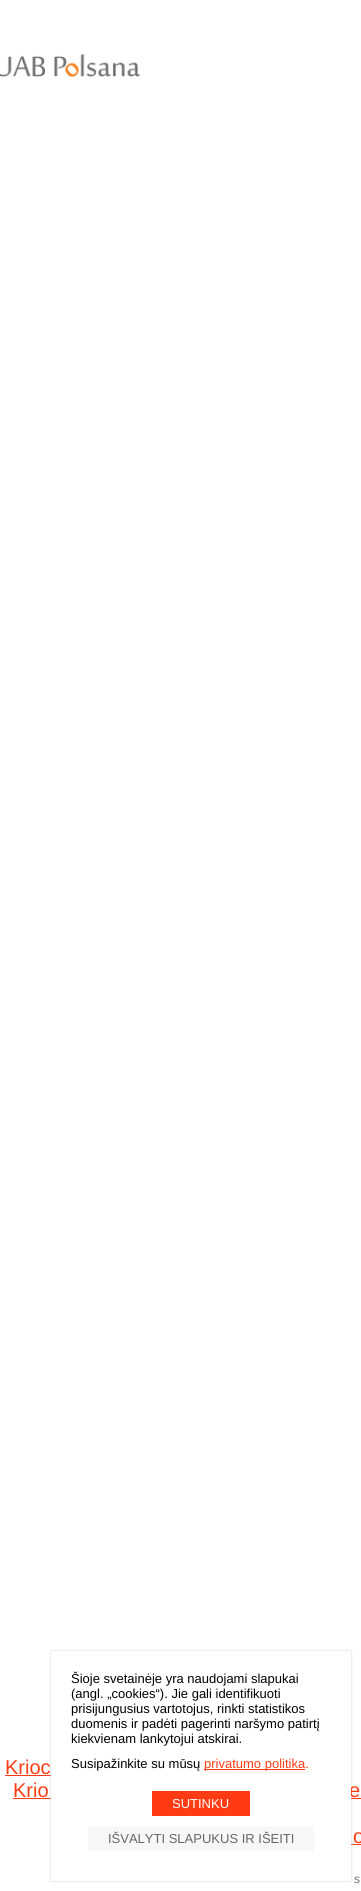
#include <cairo.h>
#include <math.h>
#include <stddef.h>

static cairo_t *ctx;

static void use_color(int r, int g, int b) {
    cairo_set_source_rgb(ctx, r / 255.0, g / 255.0, b / 255.0);
}

static void round_rect(double x, double y, double w, double h, double r) {
    cairo_new_sub_path(ctx);
    cairo_arc(ctx, x + w - r, y + h - r, r, 0, M_PI / 2);
    cairo_arc(ctx, x + r, y + h - r, r, M_PI / 2, M_PI);
    cairo_arc(ctx, x + r, y + r, r, M_PI, 1.5 * M_PI);
    cairo_arc(ctx, x + w - r, y + r, r, 1.5 * M_PI, 2 * M_PI);
    cairo_close_path(ctx);
}

static void shadow(double x, double y, double w, double h, double r, double blur, double alpha) {
    cairo_push_group_with_content(ctx, CAIRO_CONTENT_ALPHA);
    cairo_set_operator(ctx, CAIRO_OPERATOR_SOURCE);
    for (int i = 15; i >= -15 && fmin(w, h) + blur * i / 3 > 0; i -= 2) {
        double e = blur * i / 6;
        cairo_set_source_rgba(ctx, 0, 0, 0, alpha * erfc((i - 1) / 8.5) / 2);
        round_rect(x - e, y - e, w + 2 * e, h + 2 * e, fmax(0, fmin(r + e + blur * .6, fmin(w, h) / 2 + e)));
        cairo_fill(ctx);
    }
    cairo_pattern_t *soft = cairo_pop_group(ctx);
    cairo_mask(ctx, soft);
    cairo_pattern_destroy(soft);
}

static void picture(const char *path, double x, double y, double w, double h) {
    cairo_surface_t *image = cairo_image_surface_create_from_png(path);
    cairo_save(ctx);
    cairo_set_source_surface(ctx, image, x, y);
    cairo_rectangle(ctx, x, y, w, h);
    cairo_fill(ctx);
    cairo_restore(ctx);
    cairo_surface_destroy(image);
}

int main(void) {
    cairo_surface_t *surface = cairo_image_surface_create(CAIRO_FORMAT_RGB24, 361, 1891);
    ctx = cairo_create(surface);
    cairo_font_options_t *options = cairo_font_options_create();
    cairo_font_options_set_hint_metrics(options, CAIRO_HINT_METRICS_OFF);
    cairo_font_options_set_hint_style(options, CAIRO_HINT_STYLE_NONE);
    cairo_set_font_options(ctx, options);
    cairo_set_miter_limit(ctx, 4);
    use_color(255, 255, 255);
    cairo_paint(ctx);
    picture("img1.png", 0, 54, 140, 23);
    use_color(255, 59, 20);
    cairo_rectangle(ctx, 5, 1775, 46, 1);
    cairo_fill(ctx);
    cairo_rectangle(ctx, 13, 1798, 38, 1);
    cairo_fill(ctx);
    cairo_rectangle(ctx, 351, 1798, 10, 1);
    cairo_fill(ctx);
    cairo_rectangle(ctx, 351, 1844, 10, 1);
    cairo_fill(ctx);
    use_color(204, 204, 204);
    shadow(51, 1651, 300, 230, 0, 1, 1);
    cairo_select_font_face(ctx, "Liberation Sans", CAIRO_FONT_SLANT_NORMAL, CAIRO_FONT_WEIGHT_NORMAL);
    cairo_set_font_size(ctx, 20);
    use_color(255, 59, 20);
    cairo_move_to(ctx, 349, 1797);
    cairo_show_text(ctx, "e");
    use_color(255, 255, 255);
    cairo_rectangle(ctx, 51, 1651, 300, 230);
    cairo_fill(ctx);
    cairo_set_font_size(ctx, 13);
    use_color(0, 0, 0);
    cairo_move_to(ctx, 71, 1683);
    cairo_show_text(ctx, "Šioje svetainėje yra naudojami slapukai");
    cairo_move_to(ctx, 71, 1698);
    cairo_show_text(ctx, "(angl. „cookies“). Jie gali identifikuoti");
    cairo_move_to(ctx, 71, 1713);
    cairo_show_text(ctx, "prisijungusius vartotojus, rinkti statistikos");
    cairo_move_to(ctx, 71, 1728);
    cairo_show_text(ctx, "duomenis ir padėti pagerinti naršymo patirtį");
    cairo_move_to(ctx, 71, 1743);
    cairo_show_text(ctx, "kiekvienam lankytojui atskirai.");
    cairo_move_to(ctx, 71, 1768);
    cairo_show_text(ctx, "Susipažinkite su mūsų");
    use_color(255, 59, 20);
    cairo_rectangle(ctx, 204, 1769, 101, 1);
    cairo_fill(ctx);
    cairo_move_to(ctx, 204, 1768);
    cairo_show_text(ctx, "privatumo politika.");
    cairo_rectangle(ctx, 152, 1791, 98, 25);
    cairo_fill(ctx);
    use_color(255, 255, 255);
    cairo_move_to(ctx, 172, 1808);
    cairo_show_text(ctx, "SUTINKU");
    use_color(247, 247, 247);
    cairo_rectangle(ctx, 88, 1826, 226, 25);
    cairo_fill(ctx);
    use_color(102, 102, 102);
    cairo_move_to(ctx, 108, 1843);
    cairo_show_text(ctx, "IŠVALYTI SLAPUKUS IR IŠEITI");
    cairo_set_font_size(ctx, 20);
    use_color(255, 59, 20);
    cairo_move_to(ctx, 5, 1774);
    cairo_show_text(ctx, "Krioc");
    cairo_move_to(ctx, 13, 1797);
    cairo_show_text(ctx, "Krio");
    cairo_move_to(ctx, 353, 1843);
    cairo_show_text(ctx, "o");
    cairo_set_font_size(ctx, 12);
    use_color(118, 113, 113);
    cairo_move_to(ctx, 354, 1883);
    cairo_show_text(ctx, "s");
    cairo_surface_write_to_png(surface, "result.png");
    cairo_font_options_destroy(options);
    cairo_destroy(ctx);
    cairo_surface_destroy(surface);
    return 0;
}
